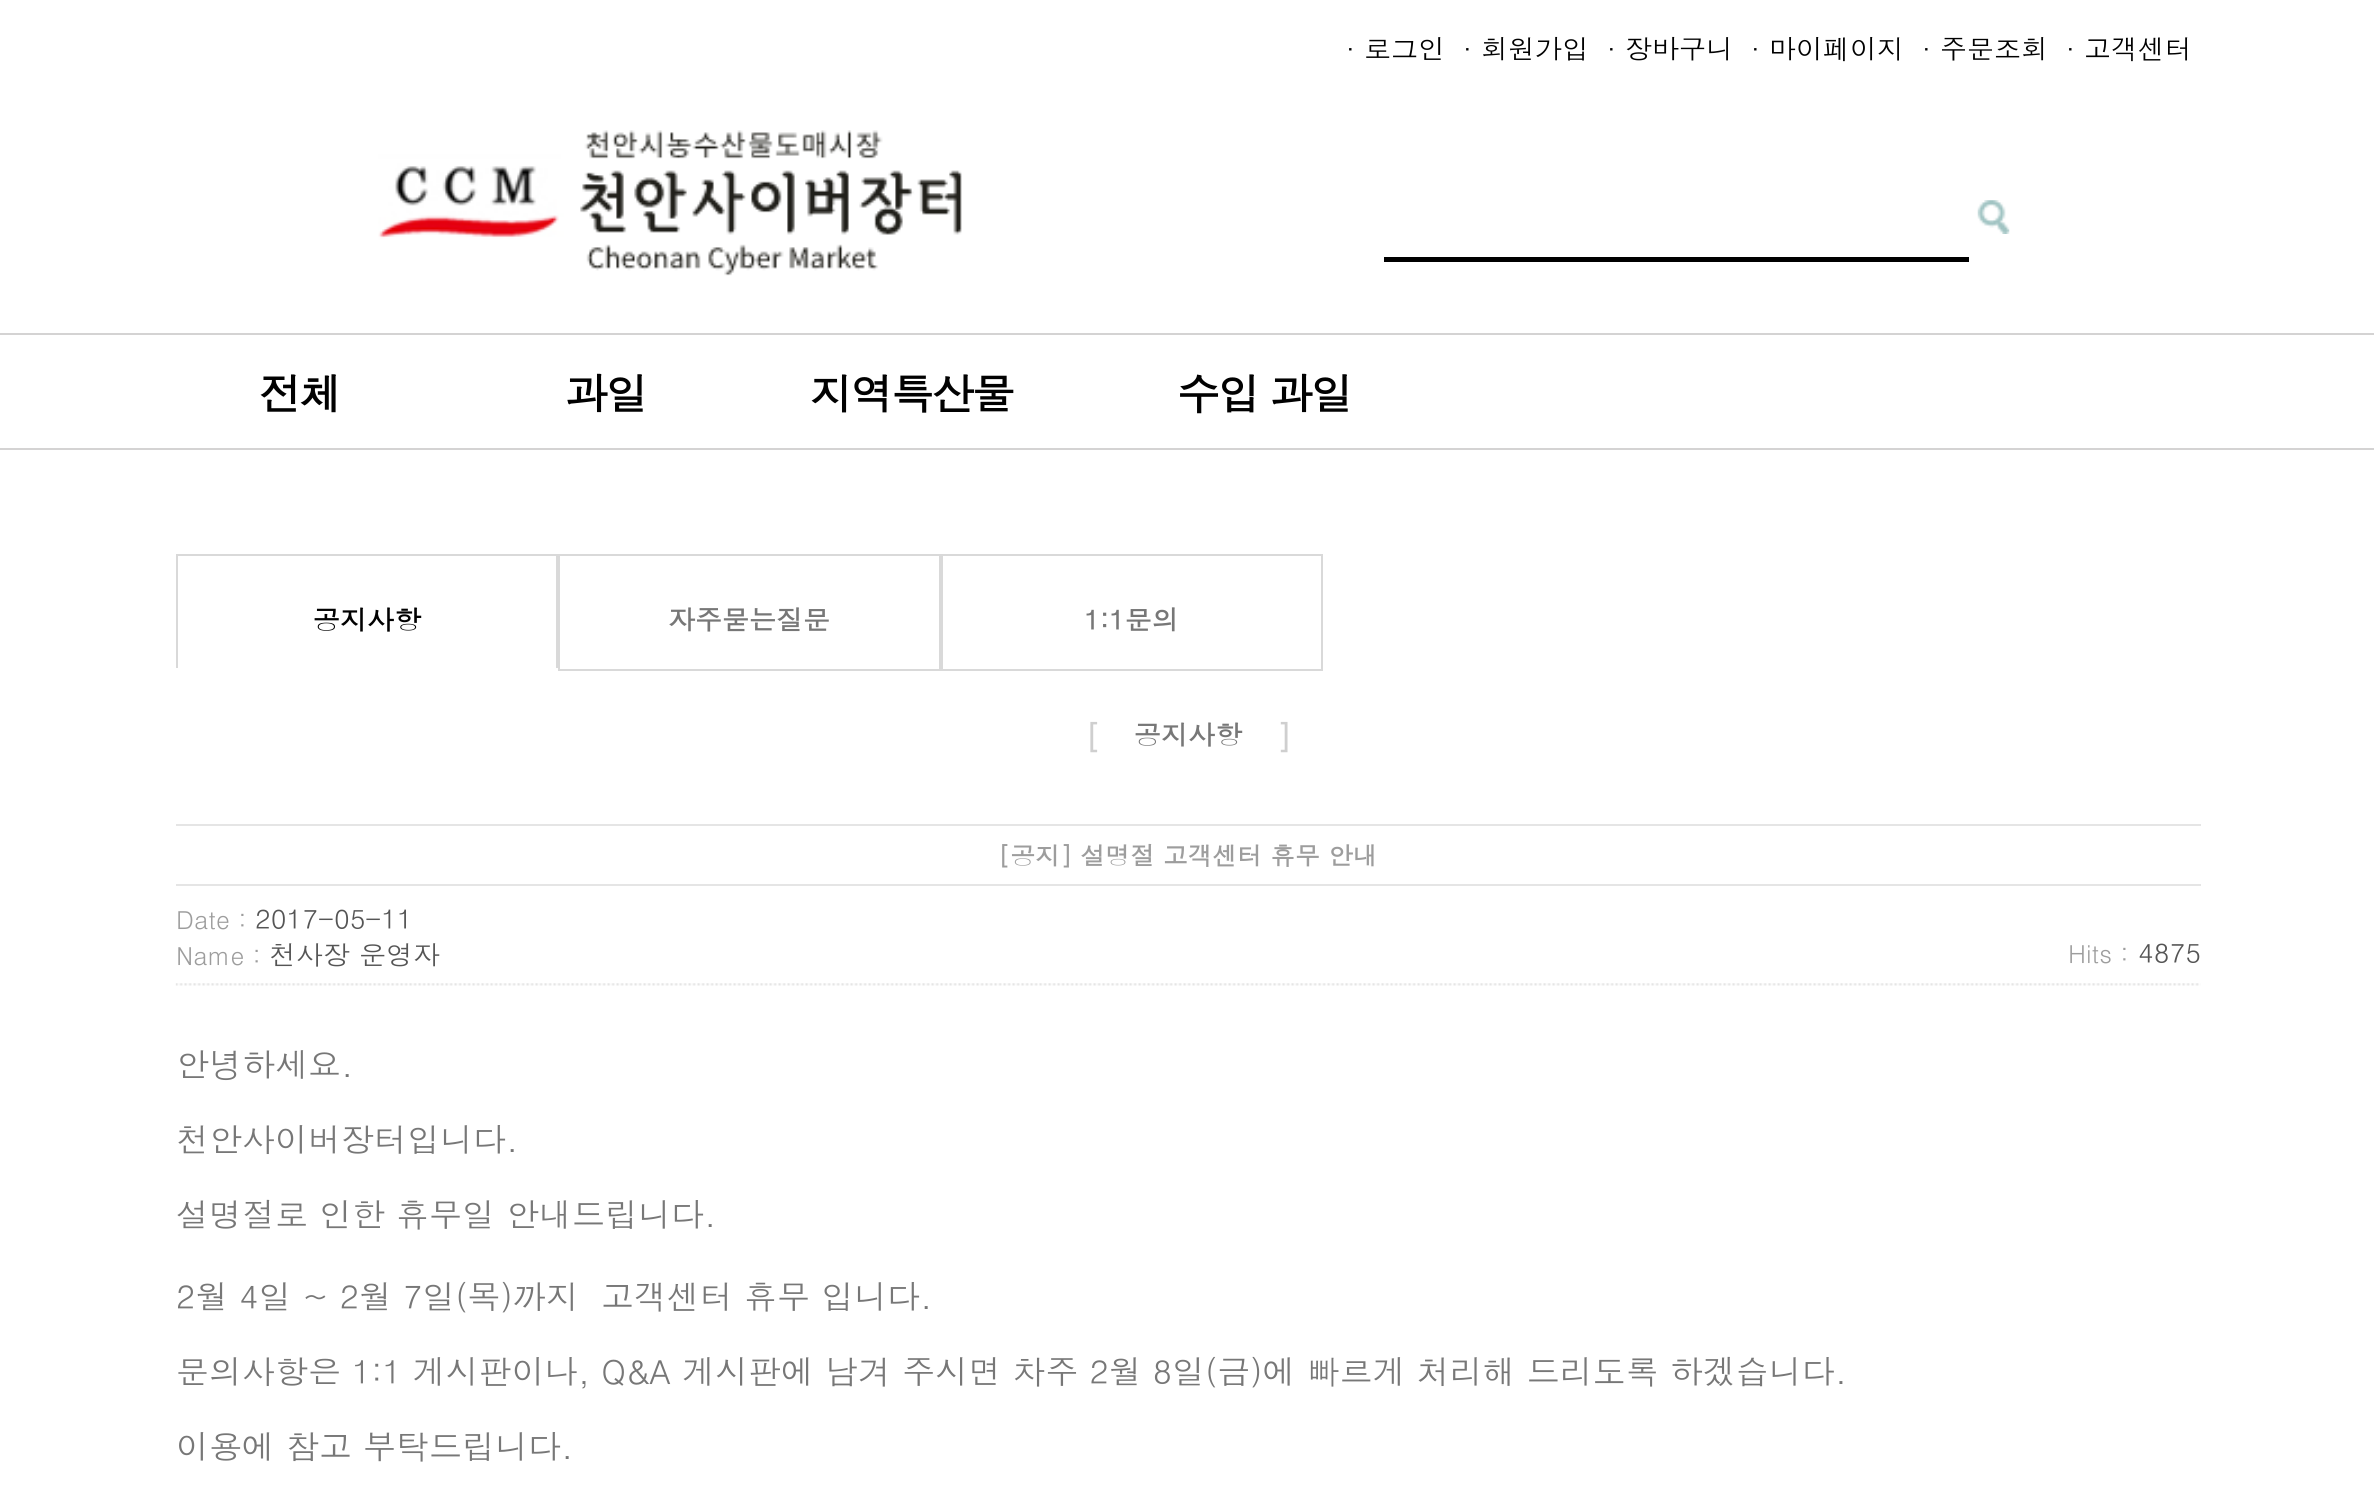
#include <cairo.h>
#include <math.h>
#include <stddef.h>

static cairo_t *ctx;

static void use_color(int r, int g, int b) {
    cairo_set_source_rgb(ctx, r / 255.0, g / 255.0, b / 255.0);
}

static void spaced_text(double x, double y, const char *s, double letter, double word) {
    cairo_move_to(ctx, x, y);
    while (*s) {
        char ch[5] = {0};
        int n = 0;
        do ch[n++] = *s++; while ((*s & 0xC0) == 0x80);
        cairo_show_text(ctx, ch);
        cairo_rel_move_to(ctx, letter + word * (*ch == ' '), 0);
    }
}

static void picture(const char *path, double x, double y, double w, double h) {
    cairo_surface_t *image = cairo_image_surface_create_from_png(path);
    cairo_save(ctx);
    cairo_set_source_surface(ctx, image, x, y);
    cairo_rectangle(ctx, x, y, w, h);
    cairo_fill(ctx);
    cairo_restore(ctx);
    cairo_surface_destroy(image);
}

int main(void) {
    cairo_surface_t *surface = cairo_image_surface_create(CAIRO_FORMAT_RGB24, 2374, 1495);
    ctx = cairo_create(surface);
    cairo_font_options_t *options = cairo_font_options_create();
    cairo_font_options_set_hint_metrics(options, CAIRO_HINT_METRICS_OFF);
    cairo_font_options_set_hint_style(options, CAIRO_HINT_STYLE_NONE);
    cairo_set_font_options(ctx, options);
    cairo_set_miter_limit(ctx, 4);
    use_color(255, 255, 255);
    cairo_paint(ctx);
    cairo_select_font_face(ctx, "Dotum", CAIRO_FONT_SLANT_NORMAL, CAIRO_FONT_WEIGHT_NORMAL);
    cairo_set_font_size(ctx, 27);
    use_color(1, 1, 1);
    cairo_move_to(ctx, 1346, 59);
    cairo_show_text(ctx, "· 로그인");
    cairo_move_to(ctx, 1463, 59);
    cairo_show_text(ctx, "· 회원가입");
    cairo_move_to(ctx, 1607, 59);
    cairo_show_text(ctx, "· 장바구니");
    cairo_move_to(ctx, 1751, 59);
    cairo_show_text(ctx, "· 마이페이지");
    cairo_move_to(ctx, 1922, 59);
    cairo_show_text(ctx, "· 주문조회");
    cairo_move_to(ctx, 2066, 59);
    cairo_show_text(ctx, "· 고객센터");
    picture("img1.png", 378, 130, 584, 146);
    picture("img2.png", 1977, 200, 33, 34);
    use_color(0, 0, 0);
    cairo_rectangle(ctx, 1384, 257, 585, 5);
    cairo_fill(ctx);
    use_color(212, 211, 211);
    cairo_rectangle(ctx, 0, 333, 2374, 2);
    cairo_fill(ctx);
    cairo_rectangle(ctx, 0, 448, 2374, 2);
    cairo_fill(ctx);
    cairo_select_font_face(ctx, "Dotum", CAIRO_FONT_SLANT_NORMAL, CAIRO_FONT_WEIGHT_BOLD);
    cairo_set_font_size(ctx, 42.75);
    use_color(1, 1, 1);
    spaced_text(259, 410, "전체", -2.25, 0);
    spaced_text(565, 410, "과일", -2.25, 0);
    spaced_text(810, 410, "지역특산물", -2.25, 0);
    spaced_text(1177, 410, "수입 과일", -2.25, 0);
    use_color(217, 217, 217);
    cairo_rectangle(ctx, 176, 554, 382, 2);
    cairo_fill(ctx);
    cairo_rectangle(ctx, 556, 554, 2, 114);
    cairo_fill(ctx);
    cairo_rectangle(ctx, 176, 554, 2, 114);
    cairo_fill(ctx);
    cairo_set_font_size(ctx, 27);
    use_color(1, 1, 1);
    cairo_move_to(ctx, 313, 630);
    cairo_show_text(ctx, "공지사항");
    cairo_rectangle(ctx, 559, 555, 381, 115);
    use_color(217, 217, 217);
    cairo_stroke(ctx);
    use_color(119, 119, 119);
    cairo_move_to(ctx, 668, 630);
    cairo_show_text(ctx, "자주묻는질문");
    cairo_rectangle(ctx, 942, 555, 380, 115);
    use_color(217, 217, 217);
    cairo_stroke(ctx);
    use_color(119, 119, 119);
    cairo_move_to(ctx, 1084, 630);
    cairo_show_text(ctx, "1:1문의");
    cairo_set_font_size(ctx, 32);
    use_color(207, 207, 207);
    cairo_move_to(ctx, 1085, 749);
    cairo_show_text(ctx, "[");
    cairo_set_font_size(ctx, 27);
    use_color(119, 119, 119);
    cairo_move_to(ctx, 1134, 745);
    cairo_show_text(ctx, "공지사항");
    cairo_set_font_size(ctx, 32);
    use_color(207, 207, 207);
    cairo_move_to(ctx, 1276, 749);
    cairo_show_text(ctx, "]");
    use_color(229, 229, 229);
    cairo_rectangle(ctx, 176, 824, 2025, 2);
    cairo_fill(ctx);
    cairo_rectangle(ctx, 176, 884, 2025, 2);
    cairo_fill(ctx);
    cairo_set_font_size(ctx, 24.75);
    use_color(157, 157, 157);
    cairo_move_to(ctx, 998, 865);
    cairo_show_text(ctx, "[공지] 설명절 고객센터 휴무 안내");
    picture("img3.png", 175, 983, 2026, 3);
    cairo_select_font_face(ctx, "Dotum", CAIRO_FONT_SLANT_NORMAL, CAIRO_FONT_WEIGHT_NORMAL);
    cairo_move_to(ctx, 176, 929);
    cairo_show_text(ctx, "Date :");
    cairo_set_font_size(ctx, 27);
    use_color(85, 85, 85);
    cairo_move_to(ctx, 255, 929);
    cairo_show_text(ctx, "2017-05-11");
    cairo_set_font_size(ctx, 24.75);
    use_color(157, 157, 157);
    cairo_move_to(ctx, 176, 965);
    cairo_show_text(ctx, "Name :");
    cairo_set_font_size(ctx, 27);
    use_color(85, 85, 85);
    cairo_move_to(ctx, 269, 965);
    cairo_show_text(ctx, "천사장 운영자");
    cairo_set_font_size(ctx, 24.75);
    use_color(157, 157, 157);
    cairo_move_to(ctx, 2068, 963);
    cairo_show_text(ctx, "Hits :");
    cairo_set_font_size(ctx, 27);
    use_color(85, 85, 85);
    cairo_move_to(ctx, 2138, 963);
    cairo_show_text(ctx, "4875");
    cairo_set_font_size(ctx, 33);
    use_color(119, 119, 119);
    cairo_move_to(ctx, 176, 1077);
    cairo_show_text(ctx, "안녕하세요.");
    cairo_move_to(ctx, 176, 1152);
    cairo_show_text(ctx, "천안사이버장터입니다.");
    cairo_move_to(ctx, 176, 1227);
    cairo_show_text(ctx, "설명절로 인한 휴무일 안내드립니다.");
    cairo_move_to(ctx, 176, 1309);
    cairo_show_text(ctx, "2월 4일 ~ 2월 7일(목)까지  고객센터 휴무 입니다.");
    cairo_move_to(ctx, 176, 1384);
    cairo_show_text(ctx, "문의사항은 1:1 게시판이나, Q&A 게시판에 남겨 주시면 차주 2월 8일(금)에 빠르게 처리해 드리도록 하겠습니다.");
    cairo_move_to(ctx, 176, 1459);
    cairo_show_text(ctx, "이용에 참고 부탁드립니다.");
    cairo_surface_write_to_png(surface, "result.png");
    cairo_font_options_destroy(options);
    cairo_destroy(ctx);
    cairo_surface_destroy(surface);
    return 0;
}
